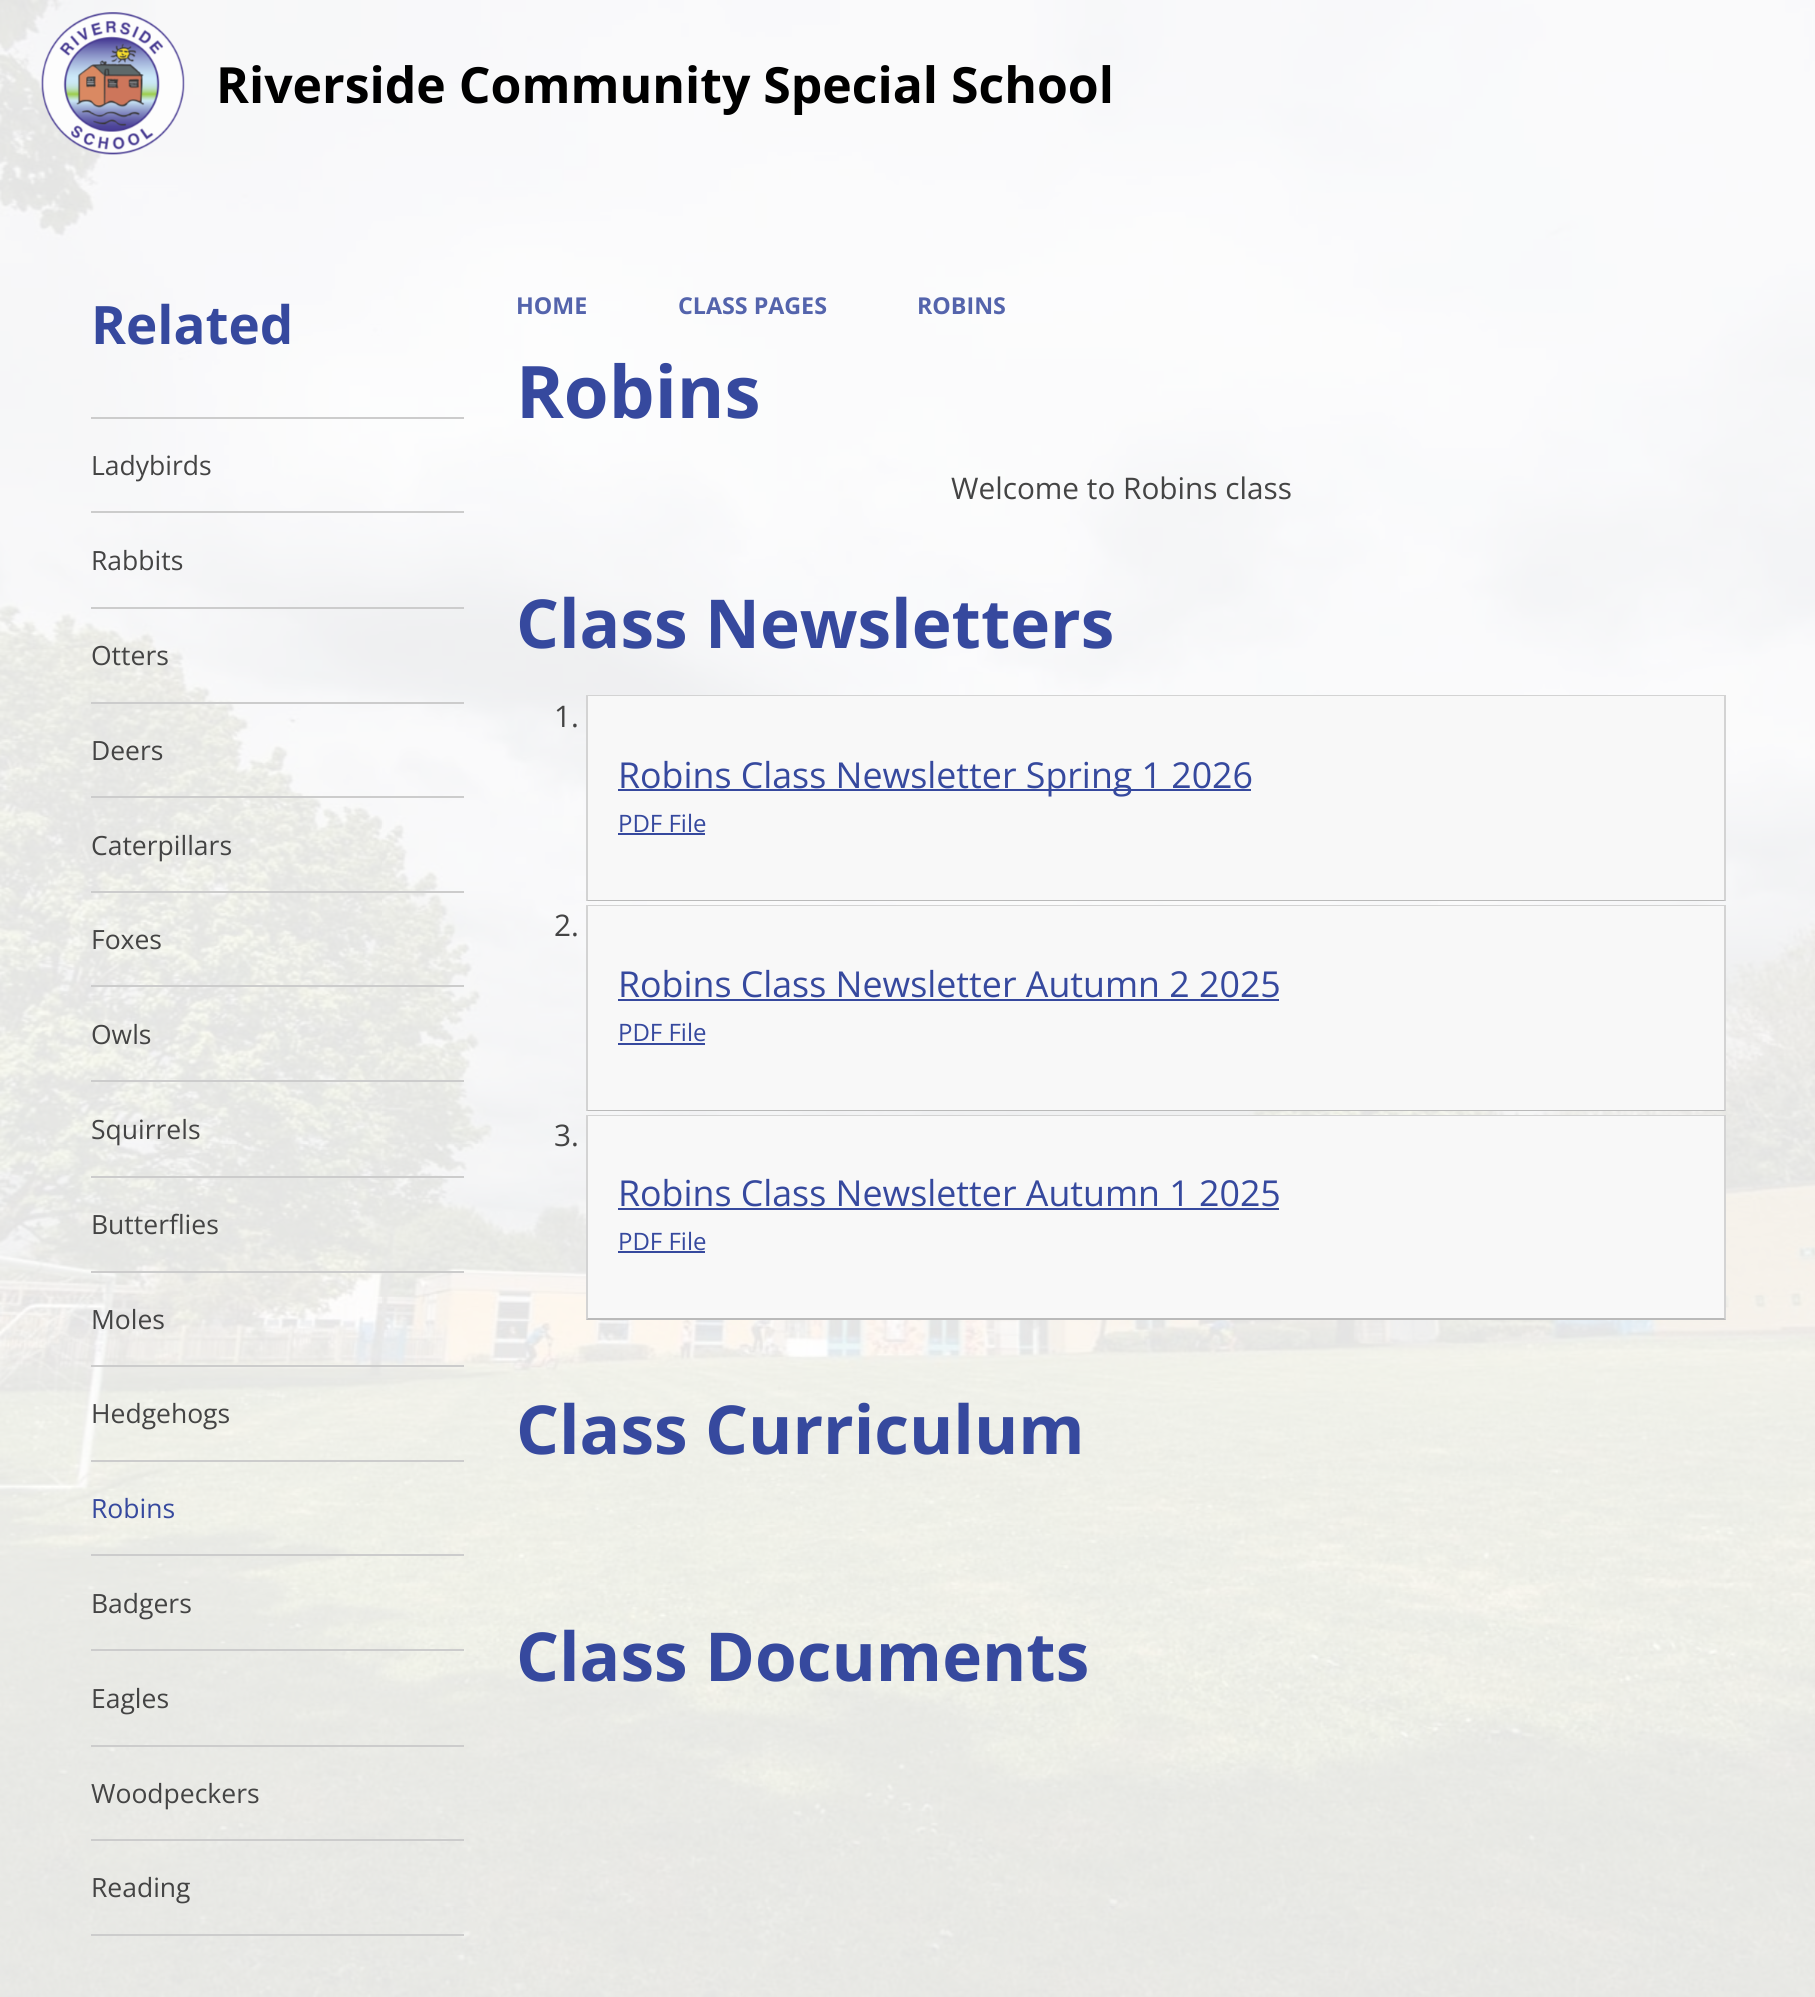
#include <cairo.h>
#include <math.h>
#include <stddef.h>

static cairo_t *ctx;

static void use_color(int r, int g, int b) {
    cairo_set_source_rgb(ctx, r / 255.0, g / 255.0, b / 255.0);
}

static void picture(const char *path, double x, double y, double w, double h) {
    cairo_surface_t *image = cairo_image_surface_create_from_png(path);
    cairo_save(ctx);
    cairo_set_source_surface(ctx, image, x, y);
    cairo_rectangle(ctx, x, y, w, h);
    cairo_fill(ctx);
    cairo_restore(ctx);
    cairo_surface_destroy(image);
}

int main(void) {
    cairo_surface_t *surface = cairo_image_surface_create(CAIRO_FORMAT_RGB24, 1815, 1997);
    ctx = cairo_create(surface);
    cairo_font_options_t *options = cairo_font_options_create();
    cairo_font_options_set_hint_metrics(options, CAIRO_HINT_METRICS_OFF);
    cairo_font_options_set_hint_style(options, CAIRO_HINT_STYLE_NONE);
    cairo_set_font_options(ctx, options);
    cairo_set_miter_limit(ctx, 4);
    use_color(255, 255, 255);
    cairo_paint(ctx);
    picture("img1.png", 0, 0, 1815, 1997);
    cairo_set_source_rgba(ctx, 1, 1, 1, 0.89);
    cairo_rectangle(ctx, 0, 0, 1815, 187);
    cairo_fill(ctx);
    picture("img2.png", 41, 12, 144, 143);
    cairo_select_font_face(ctx, "Open Sans", CAIRO_FONT_SLANT_NORMAL, CAIRO_FONT_WEIGHT_BOLD);
    cairo_set_font_size(ctx, 49.9);
    use_color(0, 0, 0);
    cairo_move_to(ctx, 216, 103);
    cairo_show_text(ctx, "Riverside Community Special School");
    cairo_set_font_size(ctx, 53);
    use_color(54, 73, 158);
    cairo_move_to(ctx, 91, 344);
    cairo_show_text(ctx, "Related");
    use_color(204, 204, 204);
    cairo_rectangle(ctx, 91, 417, 373, 2);
    cairo_fill(ctx);
    cairo_select_font_face(ctx, "Open Sans", CAIRO_FONT_SLANT_NORMAL, CAIRO_FONT_WEIGHT_NORMAL);
    cairo_set_font_size(ctx, 26.5);
    use_color(68, 68, 68);
    cairo_move_to(ctx, 91, 475);
    cairo_show_text(ctx, "Ladybirds");
    use_color(204, 204, 204);
    cairo_rectangle(ctx, 91, 511, 373, 2);
    cairo_fill(ctx);
    use_color(68, 68, 68);
    cairo_move_to(ctx, 91, 570);
    cairo_show_text(ctx, "Rabbits");
    use_color(204, 204, 204);
    cairo_rectangle(ctx, 91, 607, 373, 2);
    cairo_fill(ctx);
    use_color(68, 68, 68);
    cairo_move_to(ctx, 91, 665);
    cairo_show_text(ctx, "Otters");
    use_color(204, 204, 204);
    cairo_rectangle(ctx, 91, 702, 373, 2);
    cairo_fill(ctx);
    use_color(68, 68, 68);
    cairo_move_to(ctx, 91, 760);
    cairo_show_text(ctx, "Deers");
    use_color(204, 204, 204);
    cairo_rectangle(ctx, 91, 796, 373, 2);
    cairo_fill(ctx);
    use_color(68, 68, 68);
    cairo_move_to(ctx, 91, 855);
    cairo_show_text(ctx, "Caterpillars");
    use_color(204, 204, 204);
    cairo_rectangle(ctx, 91, 891, 373, 2);
    cairo_fill(ctx);
    use_color(68, 68, 68);
    cairo_move_to(ctx, 91, 949);
    cairo_show_text(ctx, "Foxes");
    use_color(204, 204, 204);
    cairo_rectangle(ctx, 91, 985, 373, 2);
    cairo_fill(ctx);
    use_color(68, 68, 68);
    cairo_move_to(ctx, 91, 1044);
    cairo_show_text(ctx, "Owls");
    use_color(204, 204, 204);
    cairo_rectangle(ctx, 91, 1080, 373, 2);
    cairo_fill(ctx);
    use_color(68, 68, 68);
    cairo_move_to(ctx, 91, 1139);
    cairo_show_text(ctx, "Squirrels");
    use_color(204, 204, 204);
    cairo_rectangle(ctx, 91, 1176, 373, 2);
    cairo_fill(ctx);
    use_color(68, 68, 68);
    cairo_move_to(ctx, 91, 1234);
    cairo_show_text(ctx, "Butterflies");
    use_color(204, 204, 204);
    cairo_rectangle(ctx, 91, 1271, 373, 2);
    cairo_fill(ctx);
    use_color(68, 68, 68);
    cairo_move_to(ctx, 91, 1329);
    cairo_show_text(ctx, "Moles");
    use_color(204, 204, 204);
    cairo_rectangle(ctx, 91, 1365, 373, 2);
    cairo_fill(ctx);
    use_color(68, 68, 68);
    cairo_move_to(ctx, 91, 1423);
    cairo_show_text(ctx, "Hedgehogs");
    use_color(204, 204, 204);
    cairo_rectangle(ctx, 91, 1460, 373, 2);
    cairo_fill(ctx);
    use_color(54, 73, 158);
    cairo_move_to(ctx, 91, 1518);
    cairo_show_text(ctx, "Robins");
    use_color(204, 204, 204);
    cairo_rectangle(ctx, 91, 1554, 373, 2);
    cairo_fill(ctx);
    use_color(68, 68, 68);
    cairo_move_to(ctx, 91, 1613);
    cairo_show_text(ctx, "Badgers");
    use_color(204, 204, 204);
    cairo_rectangle(ctx, 91, 1649, 373, 2);
    cairo_fill(ctx);
    use_color(68, 68, 68);
    cairo_move_to(ctx, 91, 1708);
    cairo_show_text(ctx, "Eagles");
    use_color(204, 204, 204);
    cairo_rectangle(ctx, 91, 1745, 373, 2);
    cairo_fill(ctx);
    use_color(68, 68, 68);
    cairo_move_to(ctx, 91, 1803);
    cairo_show_text(ctx, "Woodpeckers");
    use_color(204, 204, 204);
    cairo_rectangle(ctx, 91, 1839, 373, 2);
    cairo_fill(ctx);
    cairo_rectangle(ctx, 91, 1934, 373, 2);
    cairo_fill(ctx);
    use_color(68, 68, 68);
    cairo_move_to(ctx, 91, 1897);
    cairo_show_text(ctx, "Reading");
    cairo_select_font_face(ctx, "Open Sans", CAIRO_FONT_SLANT_NORMAL, CAIRO_FONT_WEIGHT_BOLD);
    cairo_set_font_size(ctx, 23.25);
    use_color(84, 100, 172);
    cairo_move_to(ctx, 516, 314);
    cairo_show_text(ctx, "HOME");
    cairo_move_to(ctx, 678, 314);
    cairo_show_text(ctx, "CLASS PAGES");
    cairo_move_to(ctx, 917, 314);
    cairo_show_text(ctx, "ROBINS");
    cairo_set_font_size(ctx, 72.5);
    use_color(54, 73, 158);
    cairo_move_to(ctx, 516, 418);
    cairo_show_text(ctx, "Robins");
    cairo_select_font_face(ctx, "Open Sans", CAIRO_FONT_SLANT_NORMAL, CAIRO_FONT_WEIGHT_NORMAL);
    cairo_set_font_size(ctx, 29.75);
    use_color(68, 68, 68);
    cairo_move_to(ctx, 951, 499);
    cairo_show_text(ctx, "Welcome to Robins class");
    cairo_select_font_face(ctx, "Open Sans", CAIRO_FONT_SLANT_NORMAL, CAIRO_FONT_WEIGHT_BOLD);
    cairo_set_font_size(ctx, 67.5);
    use_color(54, 73, 158);
    cairo_move_to(ctx, 516, 648);
    cairo_show_text(ctx, "Class Newsletters");
    cairo_select_font_face(ctx, "Open Sans", CAIRO_FONT_SLANT_NORMAL, CAIRO_FONT_WEIGHT_NORMAL);
    cairo_set_font_size(ctx, 29.75);
    use_color(68, 68, 68);
    cairo_move_to(ctx, 554, 727);
    cairo_show_text(ctx, "1.");
    use_color(248, 248, 248);
    cairo_rectangle(ctx, 586, 695, 1140, 206);
    cairo_fill(ctx);
    use_color(211, 211, 211);
    cairo_new_path(ctx);
    cairo_move_to(ctx, 586, 695);
    cairo_line_to(ctx, 1726, 695);
    cairo_line_to(ctx, 1724, 696);
    cairo_line_to(ctx, 588, 696);
    cairo_close_path(ctx);
    cairo_fill(ctx);
    cairo_set_source_rgba(ctx, 0, 0, 0, 0.15);
    cairo_new_path(ctx);
    cairo_move_to(ctx, 1726, 695);
    cairo_line_to(ctx, 1726, 901);
    cairo_line_to(ctx, 1724, 900);
    cairo_line_to(ctx, 1724, 696);
    cairo_close_path(ctx);
    cairo_fill(ctx);
    cairo_set_source_rgba(ctx, 0, 0, 0, 0.25);
    cairo_new_path(ctx);
    cairo_move_to(ctx, 1726, 901);
    cairo_line_to(ctx, 586, 901);
    cairo_line_to(ctx, 588, 900);
    cairo_line_to(ctx, 1724, 900);
    cairo_close_path(ctx);
    cairo_fill(ctx);
    cairo_set_source_rgba(ctx, 0, 0, 0, 0.15);
    cairo_new_path(ctx);
    cairo_move_to(ctx, 586, 901);
    cairo_line_to(ctx, 586, 695);
    cairo_line_to(ctx, 588, 696);
    cairo_line_to(ctx, 588, 900);
    cairo_close_path(ctx);
    cairo_fill(ctx);
    use_color(54, 73, 158);
    cairo_rectangle(ctx, 618, 789, 633, 2);
    cairo_fill(ctx);
    cairo_set_font_size(ctx, 35.75);
    cairo_move_to(ctx, 618, 788);
    cairo_show_text(ctx, "Robins Class Newsletter Spring 1 2026");
    cairo_set_font_size(ctx, 24);
    cairo_move_to(ctx, 618, 832);
    cairo_show_text(ctx, "PDF File");
    cairo_rectangle(ctx, 618, 833, 87, 2);
    cairo_fill(ctx);
    cairo_set_font_size(ctx, 29.75);
    use_color(68, 68, 68);
    cairo_move_to(ctx, 554, 936);
    cairo_show_text(ctx, "2.");
    use_color(248, 248, 248);
    cairo_rectangle(ctx, 586, 905, 1140, 206);
    cairo_fill(ctx);
    use_color(211, 211, 211);
    cairo_new_path(ctx);
    cairo_move_to(ctx, 586, 905);
    cairo_line_to(ctx, 1726, 905);
    cairo_line_to(ctx, 1724, 906);
    cairo_line_to(ctx, 588, 906);
    cairo_close_path(ctx);
    cairo_fill(ctx);
    cairo_set_source_rgba(ctx, 0, 0, 0, 0.15);
    cairo_new_path(ctx);
    cairo_move_to(ctx, 1726, 905);
    cairo_line_to(ctx, 1726, 1111);
    cairo_line_to(ctx, 1724, 1110);
    cairo_line_to(ctx, 1724, 906);
    cairo_close_path(ctx);
    cairo_fill(ctx);
    cairo_set_source_rgba(ctx, 0, 0, 0, 0.25);
    cairo_new_path(ctx);
    cairo_move_to(ctx, 1726, 1111);
    cairo_line_to(ctx, 586, 1111);
    cairo_line_to(ctx, 588, 1110);
    cairo_line_to(ctx, 1724, 1110);
    cairo_close_path(ctx);
    cairo_fill(ctx);
    cairo_set_source_rgba(ctx, 0, 0, 0, 0.15);
    cairo_new_path(ctx);
    cairo_move_to(ctx, 586, 1111);
    cairo_line_to(ctx, 586, 905);
    cairo_line_to(ctx, 588, 906);
    cairo_line_to(ctx, 588, 1110);
    cairo_close_path(ctx);
    cairo_fill(ctx);
    cairo_set_font_size(ctx, 35.75);
    use_color(54, 73, 158);
    cairo_move_to(ctx, 618, 997);
    cairo_show_text(ctx, "Robins Class Newsletter Autumn 2 2025");
    cairo_rectangle(ctx, 618, 999, 661, 2);
    cairo_fill(ctx);
    cairo_set_font_size(ctx, 24);
    cairo_move_to(ctx, 618, 1041);
    cairo_show_text(ctx, "PDF File");
    cairo_rectangle(ctx, 618, 1043, 87, 2);
    cairo_fill(ctx);
    cairo_set_font_size(ctx, 29.75);
    use_color(68, 68, 68);
    cairo_move_to(ctx, 554, 1146);
    cairo_show_text(ctx, "3.");
    use_color(248, 248, 248);
    cairo_rectangle(ctx, 586, 1115, 1140, 205);
    cairo_fill(ctx);
    use_color(211, 211, 211);
    cairo_new_path(ctx);
    cairo_move_to(ctx, 586, 1115);
    cairo_line_to(ctx, 1726, 1115);
    cairo_line_to(ctx, 1724, 1116);
    cairo_line_to(ctx, 588, 1116);
    cairo_close_path(ctx);
    cairo_fill(ctx);
    cairo_set_source_rgba(ctx, 0, 0, 0, 0.15);
    cairo_new_path(ctx);
    cairo_move_to(ctx, 1726, 1115);
    cairo_line_to(ctx, 1726, 1320);
    cairo_line_to(ctx, 1724, 1318);
    cairo_line_to(ctx, 1724, 1116);
    cairo_close_path(ctx);
    cairo_fill(ctx);
    cairo_set_source_rgba(ctx, 0, 0, 0, 0.25);
    cairo_new_path(ctx);
    cairo_move_to(ctx, 1726, 1320);
    cairo_line_to(ctx, 586, 1320);
    cairo_line_to(ctx, 588, 1318);
    cairo_line_to(ctx, 1724, 1318);
    cairo_close_path(ctx);
    cairo_fill(ctx);
    cairo_set_source_rgba(ctx, 0, 0, 0, 0.15);
    cairo_new_path(ctx);
    cairo_move_to(ctx, 586, 1320);
    cairo_line_to(ctx, 586, 1115);
    cairo_line_to(ctx, 588, 1116);
    cairo_line_to(ctx, 588, 1318);
    cairo_close_path(ctx);
    cairo_fill(ctx);
    cairo_set_font_size(ctx, 35.75);
    use_color(54, 73, 158);
    cairo_move_to(ctx, 618, 1206);
    cairo_show_text(ctx, "Robins Class Newsletter Autumn 1 2025");
    cairo_rectangle(ctx, 618, 1208, 661, 2);
    cairo_fill(ctx);
    cairo_set_font_size(ctx, 24);
    cairo_move_to(ctx, 618, 1250);
    cairo_show_text(ctx, "PDF File");
    cairo_rectangle(ctx, 618, 1251, 87, 2);
    cairo_fill(ctx);
    cairo_select_font_face(ctx, "Open Sans", CAIRO_FONT_SLANT_NORMAL, CAIRO_FONT_WEIGHT_BOLD);
    cairo_set_font_size(ctx, 67.5);
    cairo_move_to(ctx, 516, 1454);
    cairo_show_text(ctx, "Class Curriculum");
    cairo_move_to(ctx, 516, 1681);
    cairo_show_text(ctx, "Class Documents");
    cairo_surface_write_to_png(surface, "result.png");
    cairo_font_options_destroy(options);
    cairo_destroy(ctx);
    cairo_surface_destroy(surface);
    return 0;
}
